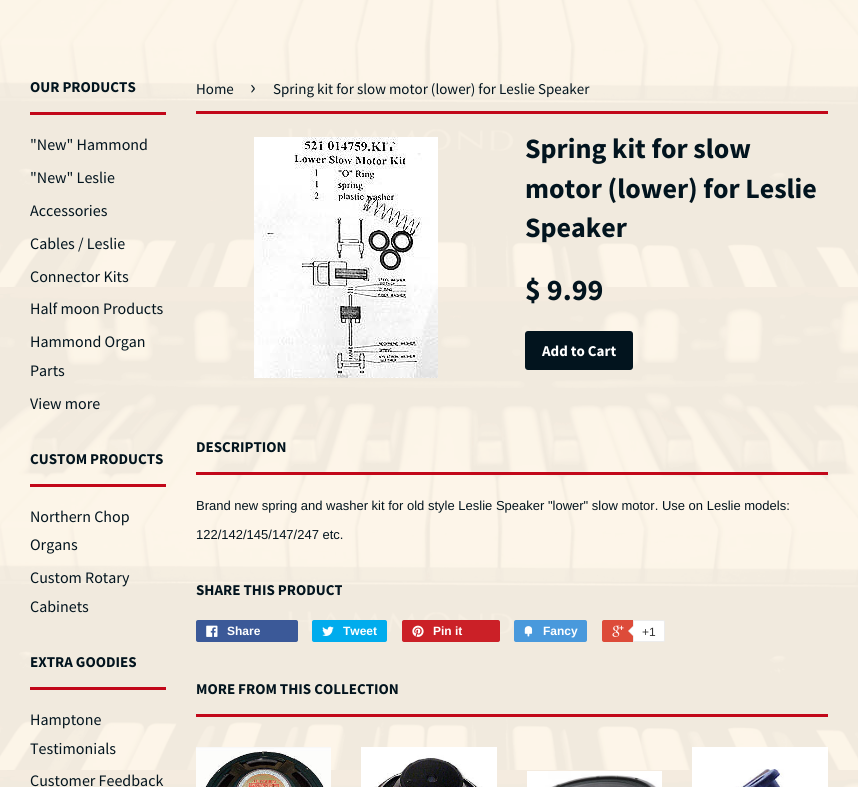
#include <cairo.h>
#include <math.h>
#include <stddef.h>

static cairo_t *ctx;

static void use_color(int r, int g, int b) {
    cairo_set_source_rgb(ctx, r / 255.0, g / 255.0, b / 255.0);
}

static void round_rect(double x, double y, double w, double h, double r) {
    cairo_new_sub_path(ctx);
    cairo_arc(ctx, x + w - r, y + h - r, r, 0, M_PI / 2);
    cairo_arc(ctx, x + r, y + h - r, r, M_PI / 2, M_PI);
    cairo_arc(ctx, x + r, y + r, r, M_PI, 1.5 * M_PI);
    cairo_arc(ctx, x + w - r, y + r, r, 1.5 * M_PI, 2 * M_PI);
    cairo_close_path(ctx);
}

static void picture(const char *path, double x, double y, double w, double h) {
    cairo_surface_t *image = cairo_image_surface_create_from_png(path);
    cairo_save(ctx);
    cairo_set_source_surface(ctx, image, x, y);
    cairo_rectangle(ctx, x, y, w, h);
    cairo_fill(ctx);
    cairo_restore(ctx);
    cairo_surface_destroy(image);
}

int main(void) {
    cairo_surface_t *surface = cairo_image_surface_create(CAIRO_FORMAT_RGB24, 858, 787);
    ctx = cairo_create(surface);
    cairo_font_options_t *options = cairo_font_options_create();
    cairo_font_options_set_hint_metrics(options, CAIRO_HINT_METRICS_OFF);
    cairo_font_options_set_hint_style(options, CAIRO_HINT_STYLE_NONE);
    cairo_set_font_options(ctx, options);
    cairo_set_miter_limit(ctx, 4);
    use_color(253, 246, 233);
    cairo_paint(ctx);
    picture("img1.png", 0, 0, 858, 787);
    use_color(194, 7, 25);
    cairo_rectangle(ctx, 30, 112, 136, 3);
    cairo_fill(ctx);
    cairo_select_font_face(ctx, "Source Sans Pro", CAIRO_FONT_SLANT_NORMAL, CAIRO_FONT_WEIGHT_BOLD);
    cairo_set_font_size(ctx, 15);
    use_color(2, 20, 30);
    cairo_move_to(ctx, 30, 92);
    cairo_show_text(ctx, "OUR PRODUCTS");
    cairo_select_font_face(ctx, "Source Sans Pro", CAIRO_FONT_SLANT_NORMAL, CAIRO_FONT_WEIGHT_NORMAL);
    cairo_set_font_size(ctx, 16);
    cairo_move_to(ctx, 30, 150);
    cairo_show_text(ctx, "\"New\" Hammond");
    cairo_move_to(ctx, 30, 183);
    cairo_show_text(ctx, "\"New\" Leslie");
    cairo_move_to(ctx, 30, 216);
    cairo_show_text(ctx, "Accessories");
    cairo_move_to(ctx, 30, 249);
    cairo_show_text(ctx, "Cables / Leslie");
    cairo_move_to(ctx, 30, 282);
    cairo_show_text(ctx, "Connector Kits");
    cairo_move_to(ctx, 30, 314);
    cairo_show_text(ctx, "Half moon Products");
    cairo_move_to(ctx, 30, 347);
    cairo_show_text(ctx, "Hammond Organ");
    cairo_move_to(ctx, 30, 376);
    cairo_show_text(ctx, "Parts");
    cairo_move_to(ctx, 30, 409);
    cairo_show_text(ctx, "View more");
    use_color(194, 7, 25);
    cairo_rectangle(ctx, 30, 484, 136, 3);
    cairo_fill(ctx);
    cairo_select_font_face(ctx, "Source Sans Pro", CAIRO_FONT_SLANT_NORMAL, CAIRO_FONT_WEIGHT_BOLD);
    cairo_set_font_size(ctx, 15);
    use_color(2, 20, 30);
    cairo_move_to(ctx, 30, 464);
    cairo_show_text(ctx, "CUSTOM PRODUCTS");
    cairo_select_font_face(ctx, "Source Sans Pro", CAIRO_FONT_SLANT_NORMAL, CAIRO_FONT_WEIGHT_NORMAL);
    cairo_set_font_size(ctx, 16);
    cairo_move_to(ctx, 30, 522);
    cairo_show_text(ctx, "Northern Chop");
    cairo_move_to(ctx, 30, 550);
    cairo_show_text(ctx, "Organs");
    cairo_move_to(ctx, 30, 583);
    cairo_show_text(ctx, "Custom Rotary");
    cairo_move_to(ctx, 30, 612);
    cairo_show_text(ctx, "Cabinets");
    use_color(194, 7, 25);
    cairo_rectangle(ctx, 30, 687, 136, 3);
    cairo_fill(ctx);
    cairo_select_font_face(ctx, "Source Sans Pro", CAIRO_FONT_SLANT_NORMAL, CAIRO_FONT_WEIGHT_BOLD);
    cairo_set_font_size(ctx, 15);
    use_color(2, 20, 30);
    cairo_move_to(ctx, 30, 667);
    cairo_show_text(ctx, "EXTRA GOODIES");
    cairo_select_font_face(ctx, "Source Sans Pro", CAIRO_FONT_SLANT_NORMAL, CAIRO_FONT_WEIGHT_NORMAL);
    cairo_set_font_size(ctx, 16);
    cairo_move_to(ctx, 30, 725);
    cairo_show_text(ctx, "Hamptone");
    cairo_move_to(ctx, 30, 754);
    cairo_show_text(ctx, "Testimonials");
    cairo_move_to(ctx, 30, 786);
    cairo_show_text(ctx, "Customer Feedback");
    use_color(194, 7, 25);
    cairo_rectangle(ctx, 196, 111, 632, 3);
    cairo_fill(ctx);
    cairo_set_font_size(ctx, 15);
    use_color(2, 20, 30);
    cairo_move_to(ctx, 196, 94);
    cairo_show_text(ctx, "Home");
    cairo_set_font_size(ctx, 21);
    cairo_move_to(ctx, 250, 94);
    cairo_show_text(ctx, "›");
    cairo_set_font_size(ctx, 15);
    cairo_move_to(ctx, 273, 94);
    cairo_show_text(ctx, "Spring kit for slow motor (lower) for Leslie Speaker");
    picture("img2.png", 254, 137, 184, 241);
    cairo_select_font_face(ctx, "Source Sans Pro", CAIRO_FONT_SLANT_NORMAL, CAIRO_FONT_WEIGHT_BOLD);
    cairo_set_font_size(ctx, 28);
    cairo_move_to(ctx, 525, 158);
    cairo_show_text(ctx, "Spring kit for slow");
    cairo_move_to(ctx, 525, 198);
    cairo_show_text(ctx, "motor (lower) for Leslie");
    cairo_move_to(ctx, 525, 237);
    cairo_show_text(ctx, "Speaker");
    cairo_set_font_size(ctx, 30);
    cairo_move_to(ctx, 525, 300);
    cairo_show_text(ctx, "$ 9.99");
    round_rect(525, 331, 108, 39, 3);
    cairo_fill(ctx);
    cairo_set_font_size(ctx, 15);
    use_color(255, 255, 255);
    cairo_move_to(ctx, 542, 356);
    cairo_show_text(ctx, "Add to Cart");
    use_color(194, 7, 25);
    cairo_rectangle(ctx, 196, 472, 632, 3);
    cairo_fill(ctx);
    use_color(2, 20, 30);
    cairo_move_to(ctx, 196, 452);
    cairo_show_text(ctx, "DESCRIPTION");
    cairo_select_font_face(ctx, "Liberation Sans", CAIRO_FONT_SLANT_NORMAL, CAIRO_FONT_WEIGHT_NORMAL);
    cairo_set_font_size(ctx, 13);
    cairo_move_to(ctx, 196, 510);
    cairo_show_text(ctx, "Brand new spring and washer kit for old style Leslie Speaker \"lower\" slow motor. Use on Leslie models:");
    cairo_move_to(ctx, 196, 539);
    cairo_show_text(ctx, "122/142/145/147/247 etc.");
    cairo_select_font_face(ctx, "Source Sans Pro", CAIRO_FONT_SLANT_NORMAL, CAIRO_FONT_WEIGHT_BOLD);
    cairo_set_font_size(ctx, 15);
    cairo_move_to(ctx, 196, 595);
    cairo_show_text(ctx, "SHARE THIS PRODUCT");
    use_color(59, 89, 152);
    round_rect(196, 620, 102, 22, 2);
    cairo_fill(ctx);
    picture("img3.png", 206, 625, 12, 12);
    cairo_select_font_face(ctx, "Liberation Sans", CAIRO_FONT_SLANT_NORMAL, CAIRO_FONT_WEIGHT_BOLD);
    cairo_set_font_size(ctx, 12);
    use_color(255, 255, 255);
    cairo_move_to(ctx, 227, 635);
    cairo_show_text(ctx, "Share");
    use_color(0, 172, 237);
    round_rect(312, 620, 75, 22, 2);
    cairo_fill(ctx);
    picture("img4.png", 322, 626, 12, 10);
    use_color(255, 255, 255);
    cairo_move_to(ctx, 343, 635);
    cairo_show_text(ctx, "Tweet");
    use_color(203, 32, 39);
    round_rect(402, 620, 98, 22, 2);
    cairo_fill(ctx);
    picture("img5.png", 412, 625, 12, 12);
    use_color(255, 255, 255);
    cairo_move_to(ctx, 433, 635);
    cairo_show_text(ctx, "Pin it");
    use_color(73, 153, 220);
    round_rect(514, 620, 73, 22, 2);
    cairo_fill(ctx);
    picture("img6.png", 524, 626, 9, 11);
    use_color(255, 255, 255);
    cairo_move_to(ctx, 543, 635);
    cairo_show_text(ctx, "Fancy");
    use_color(221, 75, 57);
    round_rect(602, 620, 61, 22, 2);
    cairo_fill(ctx);
    picture("img7.png", 612, 625, 12, 12);
    use_color(255, 255, 255);
    cairo_new_path(ctx);
    cairo_move_to(ctx, 633.5, 620.5);
    cairo_line_to(ctx, 663, 620.5);
    cairo_curve_to(ctx, 664, 620.5, 664.5, 621, 664.5, 622);
    cairo_line_to(ctx, 664.5, 640);
    cairo_curve_to(ctx, 664.5, 641, 664, 641.5, 663, 641.5);
    cairo_line_to(ctx, 633.5, 641.5);
    cairo_close_path(ctx);
    cairo_fill_preserve(ctx);
    use_color(236, 236, 236);
    cairo_set_line_width(ctx, 1);
    cairo_stroke(ctx);
    cairo_new_path(ctx);
    cairo_move_to(ctx, 634, 625);
    cairo_line_to(ctx, 634, 637);
    cairo_line_to(ctx, 628, 631);
    cairo_close_path(ctx);
    cairo_fill(ctx);
    use_color(255, 255, 255);
    cairo_new_path(ctx);
    cairo_move_to(ctx, 635, 625);
    cairo_line_to(ctx, 635, 637);
    cairo_line_to(ctx, 629, 631);
    cairo_close_path(ctx);
    cairo_fill(ctx);
    cairo_select_font_face(ctx, "Liberation Sans", CAIRO_FONT_SLANT_NORMAL, CAIRO_FONT_WEIGHT_NORMAL);
    use_color(51, 51, 51);
    cairo_move_to(ctx, 642, 636);
    cairo_show_text(ctx, "+1");
    use_color(194, 7, 25);
    cairo_rectangle(ctx, 196, 714, 632, 3);
    cairo_fill(ctx);
    cairo_select_font_face(ctx, "Source Sans Pro", CAIRO_FONT_SLANT_NORMAL, CAIRO_FONT_WEIGHT_BOLD);
    cairo_set_font_size(ctx, 15);
    use_color(2, 20, 30);
    cairo_move_to(ctx, 196, 694);
    cairo_show_text(ctx, "MORE FROM THIS COLLECTION");
    picture("img8.png", 196, 747, 135, 40);
    picture("img9.png", 361, 747, 136, 40);
    picture("img10.png", 527, 771, 135, 16);
    picture("img11.png", 692, 747, 136, 40);
    cairo_surface_write_to_png(surface, "result.png");
    cairo_font_options_destroy(options);
    cairo_destroy(ctx);
    cairo_surface_destroy(surface);
    return 0;
}
